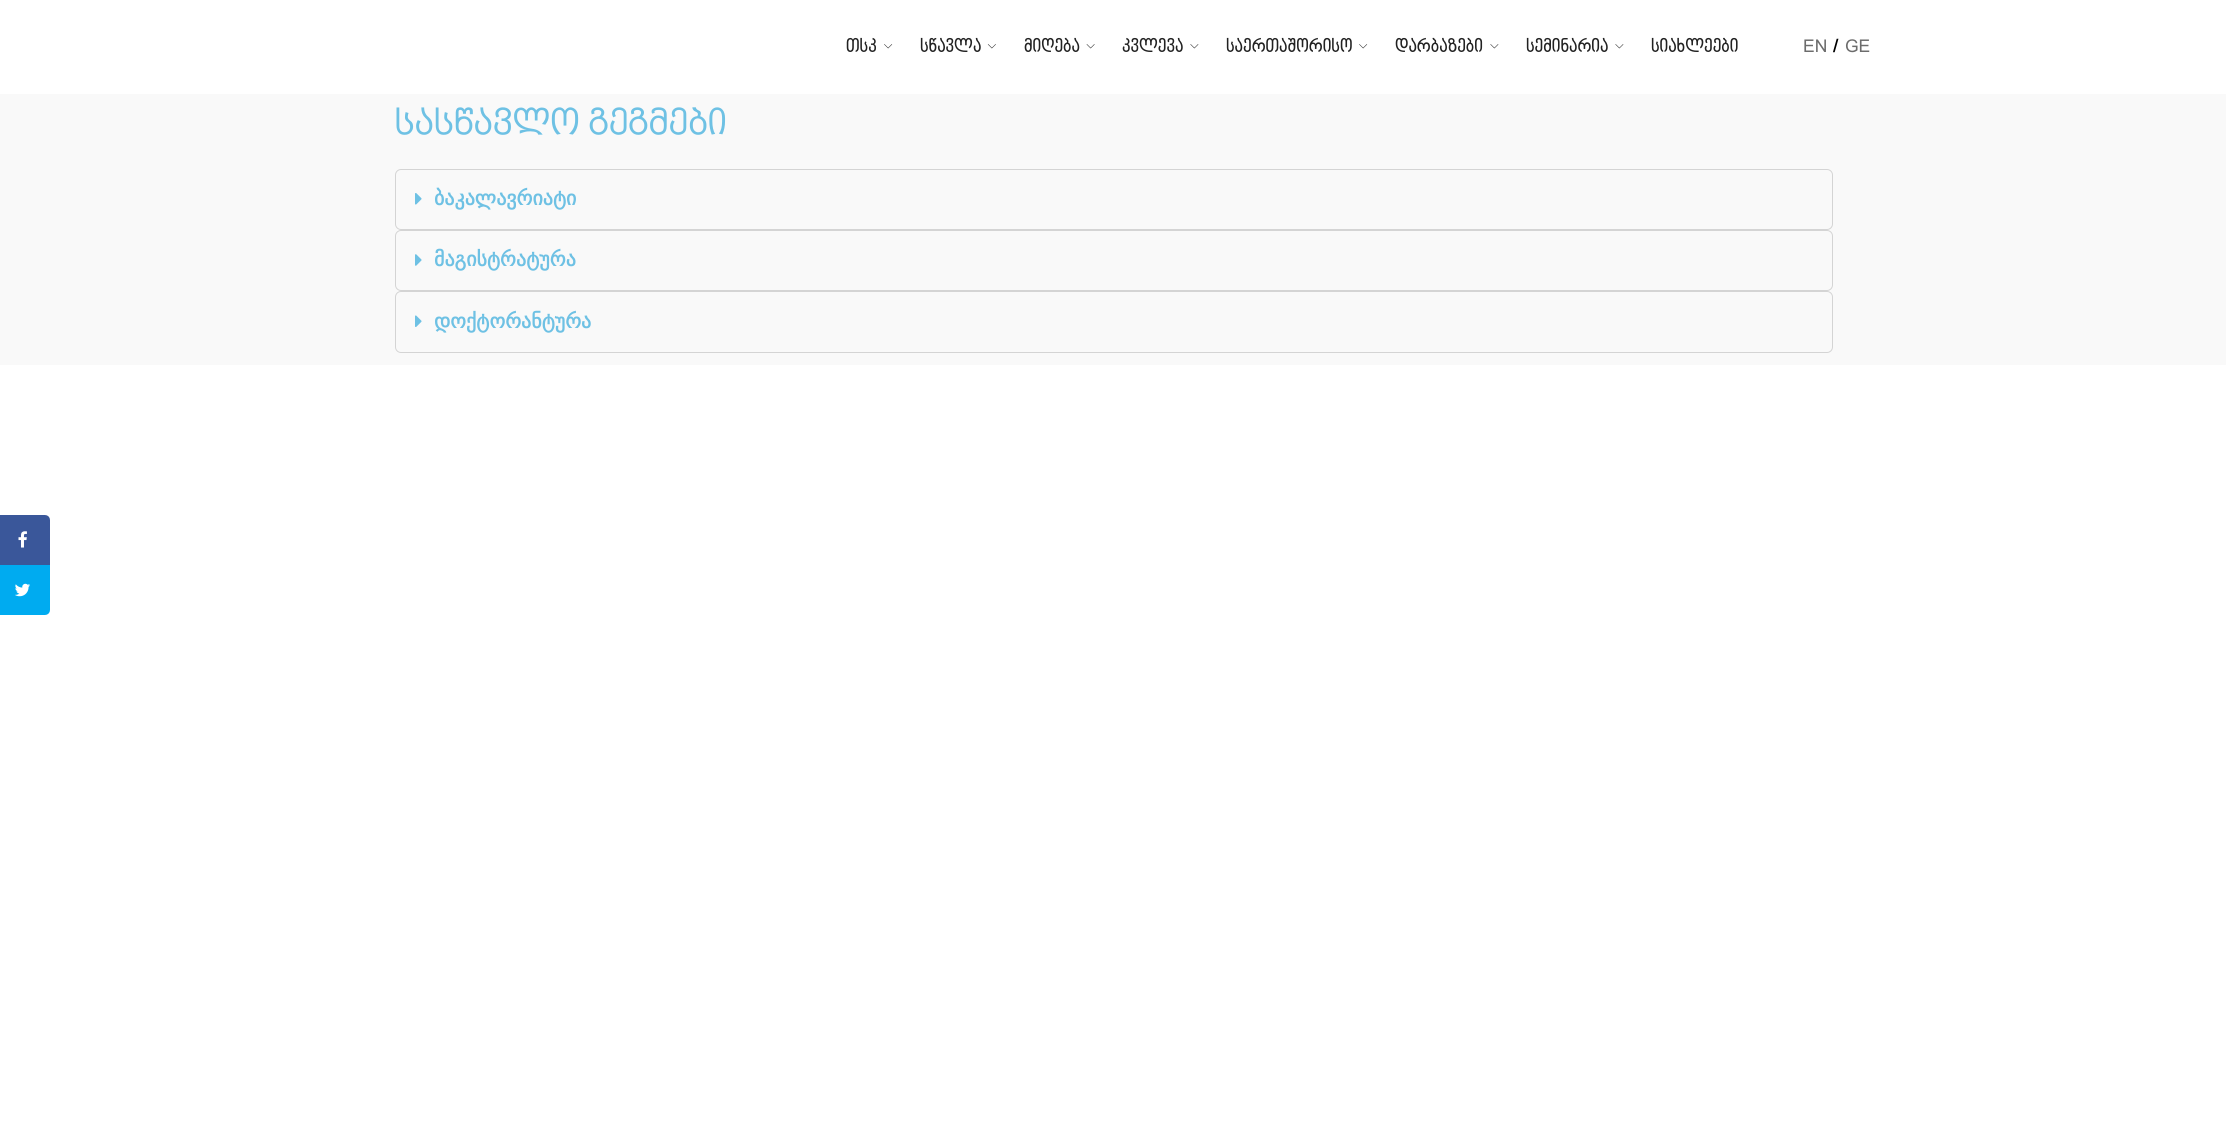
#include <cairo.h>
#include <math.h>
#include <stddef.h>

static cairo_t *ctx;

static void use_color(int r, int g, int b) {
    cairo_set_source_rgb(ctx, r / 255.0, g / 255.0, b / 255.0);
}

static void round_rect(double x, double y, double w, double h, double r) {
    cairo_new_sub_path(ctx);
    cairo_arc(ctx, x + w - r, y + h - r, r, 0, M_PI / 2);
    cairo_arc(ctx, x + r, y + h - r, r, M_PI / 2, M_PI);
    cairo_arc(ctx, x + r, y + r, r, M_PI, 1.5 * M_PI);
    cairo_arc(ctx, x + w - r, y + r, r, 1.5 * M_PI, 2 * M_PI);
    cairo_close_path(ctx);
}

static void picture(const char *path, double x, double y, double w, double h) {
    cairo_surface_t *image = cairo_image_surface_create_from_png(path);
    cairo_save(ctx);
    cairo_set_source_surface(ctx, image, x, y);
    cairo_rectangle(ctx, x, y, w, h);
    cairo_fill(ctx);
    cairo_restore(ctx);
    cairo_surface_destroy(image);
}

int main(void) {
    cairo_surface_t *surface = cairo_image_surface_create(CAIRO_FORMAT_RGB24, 2226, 1128);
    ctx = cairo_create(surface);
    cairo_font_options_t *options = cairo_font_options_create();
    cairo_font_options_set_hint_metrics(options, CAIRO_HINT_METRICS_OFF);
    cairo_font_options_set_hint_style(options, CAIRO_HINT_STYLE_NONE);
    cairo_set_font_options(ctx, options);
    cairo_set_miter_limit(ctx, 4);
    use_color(255, 255, 255);
    cairo_paint(ctx);
    use_color(249, 249, 249);
    cairo_rectangle(ctx, 0, 94, 2226, 271);
    cairo_fill(ctx);
    cairo_select_font_face(ctx, "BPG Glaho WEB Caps", CAIRO_FONT_SLANT_NORMAL, CAIRO_FONT_WEIGHT_NORMAL);
    cairo_set_font_size(ctx, 17.5);
    use_color(34, 34, 34);
    cairo_move_to(ctx, 846, 52);
    cairo_show_text(ctx, "თსკ");
    picture("img1.png", 884, 44, 9, 5);
    cairo_move_to(ctx, 920, 52);
    cairo_show_text(ctx, "სწავლა");
    picture("img2.png", 987, 44, 9, 5);
    cairo_move_to(ctx, 1024, 52);
    cairo_show_text(ctx, "მიღება");
    picture("img3.png", 1086, 44, 9, 5);
    cairo_move_to(ctx, 1122, 52);
    cairo_show_text(ctx, "კვლევა");
    picture("img4.png", 1190, 44, 9, 5);
    cairo_move_to(ctx, 1226, 52);
    cairo_show_text(ctx, "საერთაშორისო");
    picture("img1.png", 1359, 44, 9, 5);
    cairo_move_to(ctx, 1395, 52);
    cairo_show_text(ctx, "დარბაზები");
    picture("img4.png", 1490, 44, 9, 5);
    cairo_move_to(ctx, 1526, 52);
    cairo_show_text(ctx, "სემინარია");
    picture("img4.png", 1615, 44, 9, 5);
    cairo_move_to(ctx, 1651, 52);
    cairo_show_text(ctx, "სიახლეები");
    use_color(108, 108, 108);
    cairo_move_to(ctx, 1803, 52);
    cairo_show_text(ctx, "EN");
    cairo_select_font_face(ctx, "BPG Glaho WEB Caps", CAIRO_FONT_SLANT_NORMAL, CAIRO_FONT_WEIGHT_BOLD);
    use_color(0, 0, 0);
    cairo_move_to(ctx, 1833, 52);
    cairo_show_text(ctx, "/");
    cairo_select_font_face(ctx, "BPG Glaho WEB Caps", CAIRO_FONT_SLANT_NORMAL, CAIRO_FONT_WEIGHT_NORMAL);
    use_color(108, 108, 108);
    cairo_move_to(ctx, 1845, 52);
    cairo_show_text(ctx, "GE");
    cairo_select_font_face(ctx, "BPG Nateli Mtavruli", CAIRO_FONT_SLANT_NORMAL, CAIRO_FONT_WEIGHT_BOLD);
    cairo_set_font_size(ctx, 37.5);
    use_color(110, 193, 228);
    cairo_move_to(ctx, 394, 134);
    cairo_show_text(ctx, "სასწავლო გეგმები");
    round_rect(395.5, 169.5, 1437, 60, 5.5);
    use_color(212, 212, 212);
    cairo_set_line_width(ctx, 1);
    cairo_stroke(ctx);
    picture("img5.png", 415, 193, 7, 12);
    cairo_select_font_face(ctx, "DejaVu Sans", CAIRO_FONT_SLANT_NORMAL, CAIRO_FONT_WEIGHT_BOLD);
    cairo_set_font_size(ctx, 20);
    use_color(110, 193, 228);
    cairo_move_to(ctx, 434, 205);
    cairo_show_text(ctx, "ბაკალავრიატი");
    round_rect(395.5, 230.5, 1437, 60, 5.5);
    use_color(212, 212, 212);
    cairo_stroke(ctx);
    picture("img6.png", 415, 254, 7, 12);
    use_color(110, 193, 228);
    cairo_move_to(ctx, 434, 266);
    cairo_show_text(ctx, "მაგისტრატურა");
    round_rect(395.5, 291.5, 1437, 61, 5.5);
    use_color(212, 212, 212);
    cairo_stroke(ctx);
    picture("img7.png", 415, 315, 7, 12);
    use_color(110, 193, 228);
    cairo_move_to(ctx, 434, 328);
    cairo_show_text(ctx, "დოქტორანტურა");
    use_color(58, 87, 154);
    cairo_new_path(ctx);
    cairo_move_to(ctx, 1.5, 516.5);
    cairo_line_to(ctx, 45, 516.5);
    cairo_curve_to(ctx, 47, 516.5, 48.5, 518, 48.5, 520);
    cairo_line_to(ctx, 48.5, 563.5);
    cairo_line_to(ctx, 1.5, 563.5);
    cairo_close_path(ctx);
    cairo_fill_preserve(ctx);
    cairo_set_line_width(ctx, 3);
    cairo_stroke(ctx);
    picture("img8.png", 18, 531, 9, 17);
    use_color(0, 171, 240);
    cairo_new_path(ctx);
    cairo_move_to(ctx, 1.5, 566.5);
    cairo_line_to(ctx, 48.5, 566.5);
    cairo_line_to(ctx, 48.5, 610);
    cairo_curve_to(ctx, 48.5, 612, 47, 613.5, 45, 613.5);
    cairo_line_to(ctx, 1.5, 613.5);
    cairo_close_path(ctx);
    cairo_fill_preserve(ctx);
    cairo_stroke(ctx);
    picture("img9.png", 15, 583, 15, 14);
    cairo_surface_write_to_png(surface, "result.png");
    cairo_font_options_destroy(options);
    cairo_destroy(ctx);
    cairo_surface_destroy(surface);
    return 0;
}
